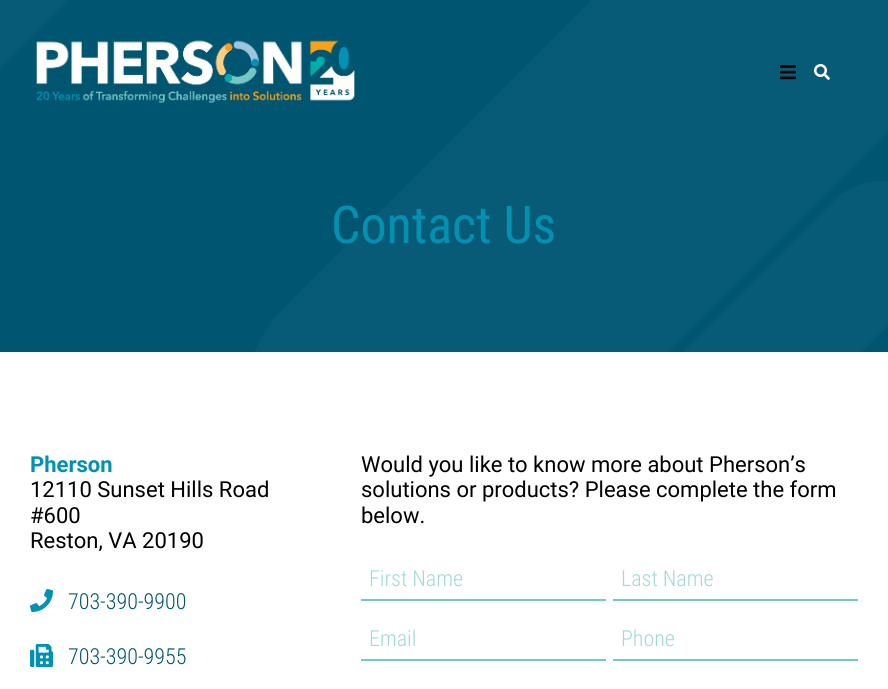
#include <cairo.h>
#include <math.h>
#include <stddef.h>

static cairo_t *ctx;

static void use_color(int r, int g, int b) {
    cairo_set_source_rgb(ctx, r / 255.0, g / 255.0, b / 255.0);
}

static void picture(const char *path, double x, double y, double w, double h) {
    cairo_surface_t *image = cairo_image_surface_create_from_png(path);
    cairo_save(ctx);
    cairo_set_source_surface(ctx, image, x, y);
    cairo_rectangle(ctx, x, y, w, h);
    cairo_fill(ctx);
    cairo_restore(ctx);
    cairo_surface_destroy(image);
}

int main(void) {
    cairo_surface_t *surface = cairo_image_surface_create(CAIRO_FORMAT_RGB24, 888, 689);
    ctx = cairo_create(surface);
    cairo_font_options_t *options = cairo_font_options_create();
    cairo_font_options_set_hint_metrics(options, CAIRO_HINT_METRICS_OFF);
    cairo_font_options_set_hint_style(options, CAIRO_HINT_STYLE_NONE);
    cairo_set_font_options(ctx, options);
    cairo_set_miter_limit(ctx, 4);
    use_color(255, 255, 255);
    cairo_paint(ctx);
    use_color(0, 85, 112);
    cairo_rectangle(ctx, 0, 0, 888, 352);
    cairo_fill(ctx);
    picture("img4.png", 0, 0, 888, 352);
    picture("img1.png", 36, 40, 319, 63);
    picture("img2.png", 780, 65, 16, 15);
    picture("img3.png", 814, 64, 16, 16);
    cairo_select_font_face(ctx, "Roboto Condensed", CAIRO_FONT_SLANT_NORMAL, CAIRO_FONT_WEIGHT_NORMAL);
    cairo_set_font_size(ctx, 52);
    use_color(0, 145, 179);
    cairo_move_to(ctx, 331, 243);
    cairo_show_text(ctx, "Contact Us");
    cairo_select_font_face(ctx, "Roboto", CAIRO_FONT_SLANT_NORMAL, CAIRO_FONT_WEIGHT_BOLD);
    cairo_set_font_size(ctx, 22);
    cairo_move_to(ctx, 30, 472);
    cairo_show_text(ctx, "Pherson");
    cairo_select_font_face(ctx, "Roboto", CAIRO_FONT_SLANT_NORMAL, CAIRO_FONT_WEIGHT_NORMAL);
    use_color(0, 0, 0);
    cairo_move_to(ctx, 30, 497);
    cairo_show_text(ctx, "12110 Sunset Hills Road");
    cairo_move_to(ctx, 30, 523);
    cairo_show_text(ctx, "#600");
    cairo_move_to(ctx, 30, 548);
    cairo_show_text(ctx, "Reston, VA 20190");
    picture("img5.png", 30, 589, 23, 23);
    cairo_select_font_face(ctx, "Roboto Condensed Light", CAIRO_FONT_SLANT_NORMAL, CAIRO_FONT_WEIGHT_NORMAL);
    use_color(0, 85, 112);
    cairo_move_to(ctx, 68, 609);
    cairo_show_text(ctx, "703-390-9900");
    picture("img6.png", 30, 644, 23, 23);
    cairo_move_to(ctx, 68, 664);
    cairo_show_text(ctx, "703-390-9955");
    cairo_select_font_face(ctx, "Roboto", CAIRO_FONT_SLANT_NORMAL, CAIRO_FONT_WEIGHT_NORMAL);
    use_color(0, 0, 0);
    cairo_move_to(ctx, 361, 472);
    cairo_show_text(ctx, "Would you like to know more about Pherson’s");
    cairo_move_to(ctx, 361, 497);
    cairo_show_text(ctx, "solutions or products? Please complete the form");
    cairo_move_to(ctx, 361, 523);
    cairo_show_text(ctx, "below.");
    use_color(118, 200, 198);
    cairo_rectangle(ctx, 361, 599, 245, 2);
    cairo_fill(ctx);
    cairo_select_font_face(ctx, "Roboto Condensed Light", CAIRO_FONT_SLANT_NORMAL, CAIRO_FONT_WEIGHT_NORMAL);
    use_color(160, 217, 216);
    cairo_move_to(ctx, 369, 586);
    cairo_show_text(ctx, "First Name");
    use_color(118, 200, 198);
    cairo_rectangle(ctx, 613, 599, 245, 2);
    cairo_fill(ctx);
    use_color(160, 217, 216);
    cairo_move_to(ctx, 621, 586);
    cairo_show_text(ctx, "Last Name");
    use_color(118, 200, 198);
    cairo_rectangle(ctx, 361, 659, 245, 2);
    cairo_fill(ctx);
    use_color(160, 217, 216);
    cairo_move_to(ctx, 369, 646);
    cairo_show_text(ctx, "Email");
    use_color(118, 200, 198);
    cairo_rectangle(ctx, 613, 659, 245, 2);
    cairo_fill(ctx);
    use_color(160, 217, 216);
    cairo_move_to(ctx, 621, 646);
    cairo_show_text(ctx, "Phone");
    cairo_surface_write_to_png(surface, "result.png");
    cairo_font_options_destroy(options);
    cairo_destroy(ctx);
    cairo_surface_destroy(surface);
    return 0;
}
